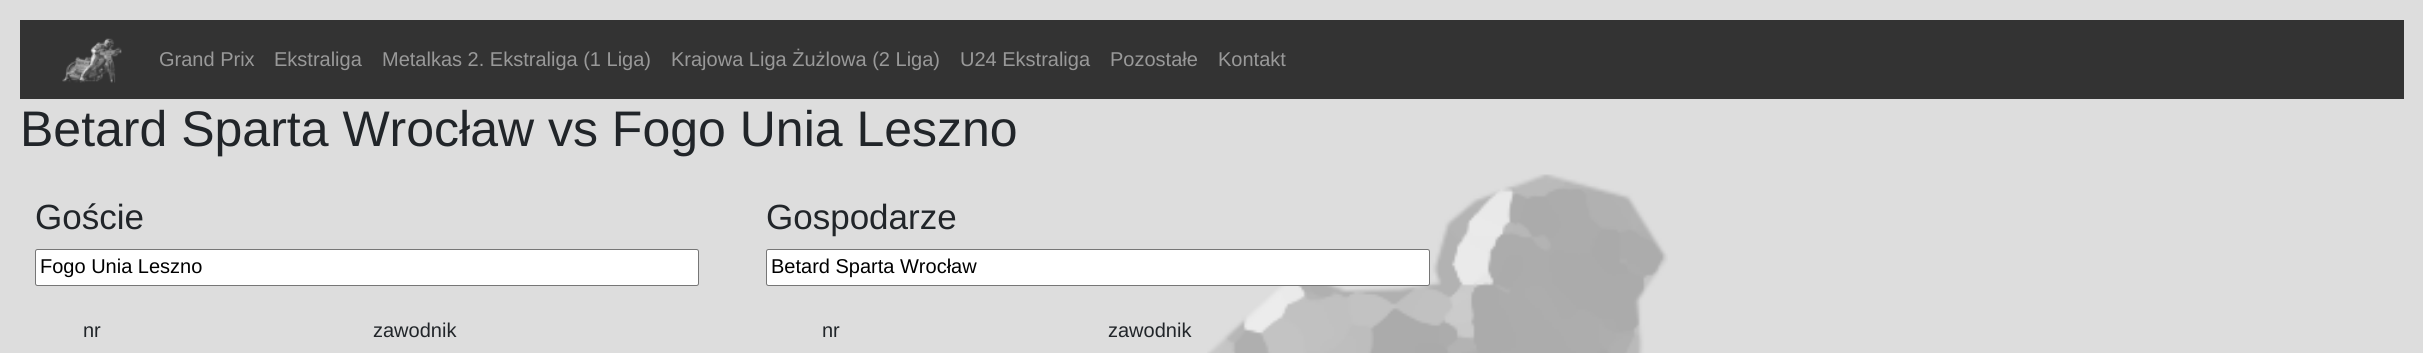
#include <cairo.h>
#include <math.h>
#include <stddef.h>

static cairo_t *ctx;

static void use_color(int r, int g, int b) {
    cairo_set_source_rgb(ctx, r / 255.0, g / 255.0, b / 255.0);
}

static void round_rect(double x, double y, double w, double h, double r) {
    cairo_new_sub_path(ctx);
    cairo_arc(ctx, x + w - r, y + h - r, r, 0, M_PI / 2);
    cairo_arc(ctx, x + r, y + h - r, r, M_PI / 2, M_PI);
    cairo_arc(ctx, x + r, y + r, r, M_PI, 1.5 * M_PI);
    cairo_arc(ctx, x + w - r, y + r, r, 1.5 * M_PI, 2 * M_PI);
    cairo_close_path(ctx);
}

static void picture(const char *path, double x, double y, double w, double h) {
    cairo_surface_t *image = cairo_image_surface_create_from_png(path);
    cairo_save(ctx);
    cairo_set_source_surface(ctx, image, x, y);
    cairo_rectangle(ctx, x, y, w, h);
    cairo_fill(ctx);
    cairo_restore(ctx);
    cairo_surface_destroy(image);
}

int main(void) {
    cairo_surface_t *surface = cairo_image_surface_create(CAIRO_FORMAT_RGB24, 2423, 353);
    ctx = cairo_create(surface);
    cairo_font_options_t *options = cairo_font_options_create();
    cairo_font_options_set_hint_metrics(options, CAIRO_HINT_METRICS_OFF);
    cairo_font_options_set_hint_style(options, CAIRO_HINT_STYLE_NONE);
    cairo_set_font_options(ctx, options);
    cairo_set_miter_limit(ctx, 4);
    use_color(221, 221, 221);
    cairo_paint(ctx);
    picture("img1.png", 1207, 174, 461, 179);
    use_color(51, 51, 51);
    cairo_rectangle(ctx, 20, 20, 2384, 79);
    cairo_fill(ctx);
    picture("img2.png", 62, 38, 60, 45);
    cairo_select_font_face(ctx, "Liberation Sans", CAIRO_FONT_SLANT_NORMAL, CAIRO_FONT_WEIGHT_NORMAL);
    cairo_set_font_size(ctx, 20);
    use_color(153, 153, 153);
    cairo_move_to(ctx, 159, 66);
    cairo_show_text(ctx, "Grand Prix");
    cairo_move_to(ctx, 274, 66);
    cairo_show_text(ctx, "Ekstraliga");
    cairo_move_to(ctx, 382, 66);
    cairo_show_text(ctx, "Metalkas 2. Ekstraliga (1 Liga)");
    cairo_move_to(ctx, 671, 66);
    cairo_show_text(ctx, "Krajowa Liga Żużlowa (2 Liga)");
    cairo_move_to(ctx, 960, 66);
    cairo_show_text(ctx, "U24 Ekstraliga");
    cairo_move_to(ctx, 1110, 66);
    cairo_show_text(ctx, "Pozostałe");
    cairo_move_to(ctx, 1218, 66);
    cairo_show_text(ctx, "Kontakt");
    cairo_set_font_size(ctx, 50);
    use_color(33, 37, 41);
    cairo_move_to(ctx, 20, 146);
    cairo_show_text(ctx, "Betard Sparta Wrocław vs Fogo Unia Leszno");
    cairo_set_font_size(ctx, 35);
    cairo_move_to(ctx, 35, 229);
    cairo_show_text(ctx, "Goście");
    use_color(255, 255, 255);
    round_rect(35.5, 249.5, 663, 36, 2);
    cairo_fill_preserve(ctx);
    use_color(118, 118, 118);
    cairo_set_line_width(ctx, 1);
    cairo_stroke(ctx);
    cairo_set_font_size(ctx, 20);
    use_color(0, 0, 0);
    cairo_move_to(ctx, 40, 273);
    cairo_show_text(ctx, "Fogo Unia Leszno");
    use_color(33, 37, 41);
    cairo_move_to(ctx, 83, 337);
    cairo_show_text(ctx, "nr");
    cairo_move_to(ctx, 373, 337);
    cairo_show_text(ctx, "zawodnik");
    cairo_set_font_size(ctx, 35);
    cairo_move_to(ctx, 766, 229);
    cairo_show_text(ctx, "Gospodarze");
    use_color(255, 255, 255);
    round_rect(766.5, 249.5, 663, 36, 2);
    cairo_fill_preserve(ctx);
    use_color(118, 118, 118);
    cairo_stroke(ctx);
    cairo_set_font_size(ctx, 20);
    use_color(0, 0, 0);
    cairo_move_to(ctx, 771, 273);
    cairo_show_text(ctx, "Betard Sparta Wrocław");
    use_color(33, 37, 41);
    cairo_move_to(ctx, 822, 337);
    cairo_show_text(ctx, "nr");
    cairo_move_to(ctx, 1108, 337);
    cairo_show_text(ctx, "zawodnik");
    cairo_surface_write_to_png(surface, "result.png");
    cairo_font_options_destroy(options);
    cairo_destroy(ctx);
    cairo_surface_destroy(surface);
    return 0;
}
